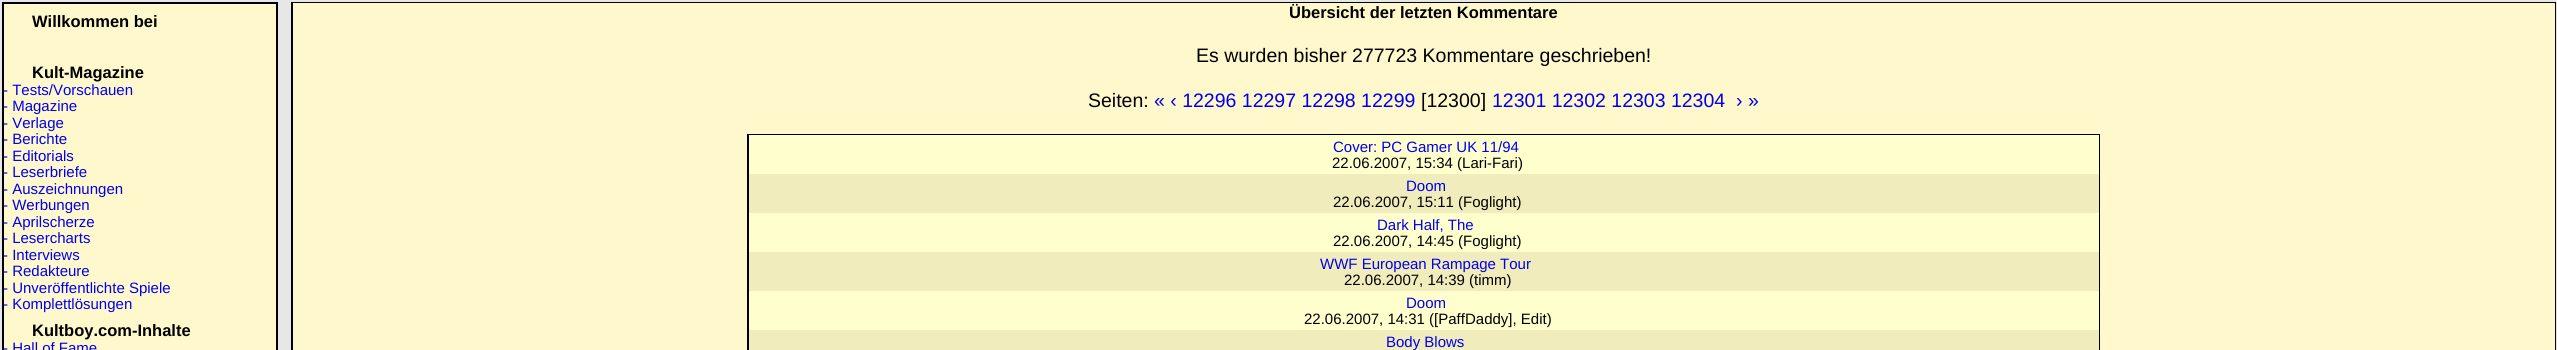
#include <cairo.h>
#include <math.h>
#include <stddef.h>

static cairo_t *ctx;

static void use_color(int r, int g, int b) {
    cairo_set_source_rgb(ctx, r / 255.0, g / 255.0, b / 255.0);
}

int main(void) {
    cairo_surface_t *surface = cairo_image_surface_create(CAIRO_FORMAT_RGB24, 2557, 350);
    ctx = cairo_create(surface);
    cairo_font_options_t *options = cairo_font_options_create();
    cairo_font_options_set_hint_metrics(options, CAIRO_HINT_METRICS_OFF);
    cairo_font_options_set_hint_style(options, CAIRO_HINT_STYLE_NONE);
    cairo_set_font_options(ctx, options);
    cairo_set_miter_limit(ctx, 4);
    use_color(231, 231, 231);
    cairo_paint(ctx);
    use_color(254, 248, 204);
    cairo_rectangle(ctx, 3, 3, 274, 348);
    cairo_fill_preserve(ctx);
    use_color(0, 0, 0);
    cairo_stroke(ctx);
    cairo_select_font_face(ctx, "Liberation Sans", CAIRO_FONT_SLANT_NORMAL, CAIRO_FONT_WEIGHT_BOLD);
    cairo_set_font_size(ctx, 16.5);
    cairo_move_to(ctx, 32, 27);
    cairo_show_text(ctx, "Willkommen bei");
    cairo_move_to(ctx, 32, 78);
    cairo_show_text(ctx, "Kult-Magazine");
    cairo_select_font_face(ctx, "Liberation Sans", CAIRO_FONT_SLANT_NORMAL, CAIRO_FONT_WEIGHT_NORMAL);
    cairo_set_font_size(ctx, 15);
    use_color(0, 0, 238);
    cairo_move_to(ctx, 3, 95);
    cairo_show_text(ctx, "- Tests/Vorschauen");
    cairo_move_to(ctx, 3, 111);
    cairo_show_text(ctx, "- Magazine");
    cairo_move_to(ctx, 3, 128);
    cairo_show_text(ctx, "- Verlage");
    cairo_move_to(ctx, 3, 144);
    cairo_show_text(ctx, "- Berichte");
    cairo_move_to(ctx, 3, 161);
    cairo_show_text(ctx, "- Editorials");
    cairo_move_to(ctx, 3, 177);
    cairo_show_text(ctx, "- Leserbriefe");
    cairo_move_to(ctx, 3, 194);
    cairo_show_text(ctx, "- Auszeichnungen");
    cairo_move_to(ctx, 3, 210);
    cairo_show_text(ctx, "- Werbungen");
    cairo_move_to(ctx, 3, 227);
    cairo_show_text(ctx, "- Aprilscherze");
    cairo_move_to(ctx, 3, 243);
    cairo_show_text(ctx, "- Lesercharts");
    cairo_move_to(ctx, 3, 260);
    cairo_show_text(ctx, "- Interviews");
    cairo_move_to(ctx, 3, 276);
    cairo_show_text(ctx, "- Redakteure");
    cairo_move_to(ctx, 3, 293);
    cairo_show_text(ctx, "- Unveröffentlichte Spiele");
    cairo_move_to(ctx, 3, 309);
    cairo_show_text(ctx, "- Komplettlösungen");
    cairo_select_font_face(ctx, "Liberation Sans", CAIRO_FONT_SLANT_NORMAL, CAIRO_FONT_WEIGHT_BOLD);
    cairo_set_font_size(ctx, 16.5);
    use_color(0, 0, 0);
    cairo_move_to(ctx, 32, 336);
    cairo_show_text(ctx, "Kultboy.com-Inhalte");
    cairo_select_font_face(ctx, "Liberation Sans", CAIRO_FONT_SLANT_NORMAL, CAIRO_FONT_WEIGHT_NORMAL);
    cairo_set_font_size(ctx, 15);
    use_color(0, 0, 238);
    cairo_move_to(ctx, 3, 353);
    cairo_show_text(ctx, "- Hall of Fame");
    cairo_rectangle(ctx, 292, 3, 2263, 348);
    use_color(0, 0, 0);
    cairo_stroke(ctx);
    use_color(254, 248, 204);
    cairo_rectangle(ctx, 293, 3, 2262, 347);
    cairo_fill(ctx);
    cairo_select_font_face(ctx, "Liberation Sans", CAIRO_FONT_SLANT_NORMAL, CAIRO_FONT_WEIGHT_BOLD);
    cairo_set_font_size(ctx, 16.5);
    use_color(0, 0, 0);
    cairo_move_to(ctx, 1289, 18);
    cairo_show_text(ctx, "Übersicht der letzten Kommentare");
    cairo_select_font_face(ctx, "Liberation Sans", CAIRO_FONT_SLANT_NORMAL, CAIRO_FONT_WEIGHT_NORMAL);
    cairo_set_font_size(ctx, 19.5);
    cairo_move_to(ctx, 1196, 62);
    cairo_show_text(ctx, "Es wurden bisher 277723 Kommentare geschrieben!");
    cairo_move_to(ctx, 1088, 107);
    cairo_show_text(ctx, "Seiten:");
    use_color(0, 0, 238);
    cairo_move_to(ctx, 1154, 107);
    cairo_show_text(ctx, "« ‹ 12296 12297 12298 12299");
    use_color(0, 0, 0);
    cairo_move_to(ctx, 1421, 107);
    cairo_show_text(ctx, "[12300]");
    use_color(0, 0, 238);
    cairo_move_to(ctx, 1492, 107);
    cairo_show_text(ctx, "12301 12302 12303 12304");
    cairo_move_to(ctx, 1736, 107);
    cairo_show_text(ctx, "› »");
    use_color(0, 0, 0);
    cairo_rectangle(ctx, 747, 134, 1353, 216);
    cairo_fill(ctx);
    use_color(255, 255, 206);
    cairo_rectangle(ctx, 749, 135, 1350, 39);
    cairo_fill(ctx);
    cairo_set_font_size(ctx, 15);
    use_color(0, 0, 238);
    cairo_move_to(ctx, 1333, 152);
    cairo_show_text(ctx, "Cover: PC Gamer UK 11/94");
    use_color(0, 0, 0);
    cairo_move_to(ctx, 1332, 168);
    cairo_show_text(ctx, "22.06.2007, 15:34 (Lari-Fari)");
    use_color(240, 236, 188);
    cairo_rectangle(ctx, 749, 174, 1350, 39);
    cairo_fill(ctx);
    use_color(0, 0, 238);
    cairo_move_to(ctx, 1406, 191);
    cairo_show_text(ctx, "Doom");
    use_color(0, 0, 0);
    cairo_move_to(ctx, 1333, 207);
    cairo_show_text(ctx, "22.06.2007, 15:11 (Foglight)");
    use_color(255, 255, 206);
    cairo_rectangle(ctx, 749, 213, 1350, 39);
    cairo_fill(ctx);
    use_color(0, 0, 238);
    cairo_move_to(ctx, 1377, 230);
    cairo_show_text(ctx, "Dark Half, The");
    use_color(0, 0, 0);
    cairo_move_to(ctx, 1333, 246);
    cairo_show_text(ctx, "22.06.2007, 14:45 (Foglight)");
    use_color(240, 236, 188);
    cairo_rectangle(ctx, 749, 252, 1350, 39);
    cairo_fill(ctx);
    use_color(0, 0, 238);
    cairo_move_to(ctx, 1320, 269);
    cairo_show_text(ctx, "WWF European Rampage Tour");
    use_color(0, 0, 0);
    cairo_move_to(ctx, 1344, 285);
    cairo_show_text(ctx, "22.06.2007, 14:39 (timm)");
    use_color(255, 255, 206);
    cairo_rectangle(ctx, 749, 291, 1350, 39);
    cairo_fill(ctx);
    use_color(0, 0, 238);
    cairo_move_to(ctx, 1406, 308);
    cairo_show_text(ctx, "Doom");
    use_color(0, 0, 0);
    cairo_move_to(ctx, 1304, 324);
    cairo_show_text(ctx, "22.06.2007, 14:31 ([PaffDaddy], Edit)");
    use_color(240, 236, 188);
    cairo_rectangle(ctx, 749, 330, 1350, 20);
    cairo_fill(ctx);
    use_color(0, 0, 238);
    cairo_move_to(ctx, 1386, 347);
    cairo_show_text(ctx, "Body Blows");
    cairo_surface_write_to_png(surface, "result.png");
    cairo_font_options_destroy(options);
    cairo_destroy(ctx);
    cairo_surface_destroy(surface);
    return 0;
}
